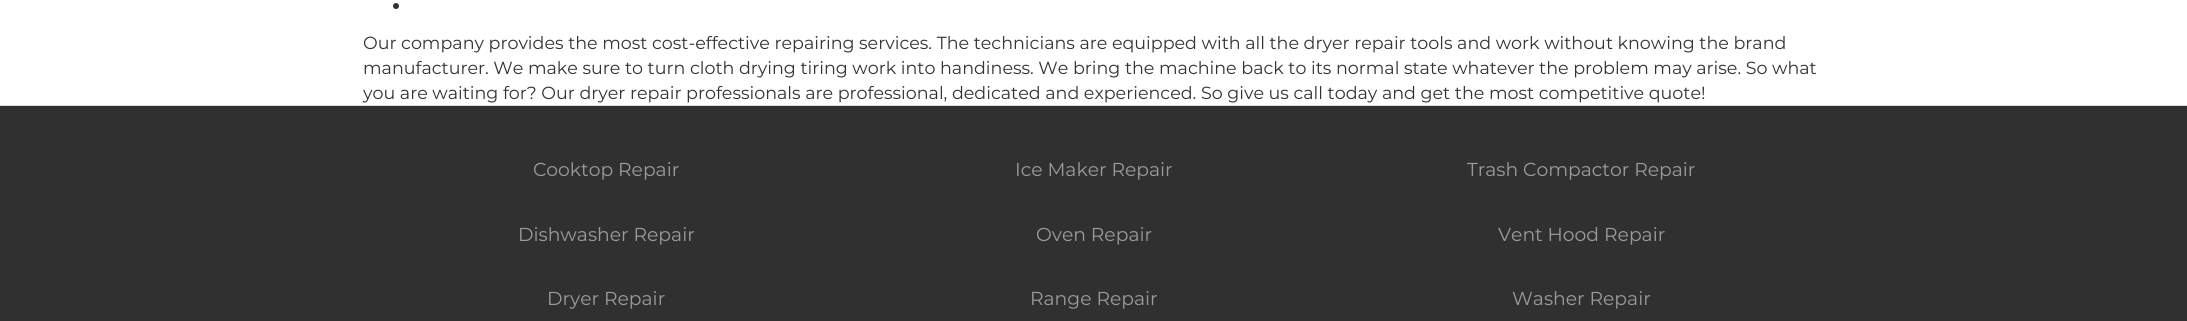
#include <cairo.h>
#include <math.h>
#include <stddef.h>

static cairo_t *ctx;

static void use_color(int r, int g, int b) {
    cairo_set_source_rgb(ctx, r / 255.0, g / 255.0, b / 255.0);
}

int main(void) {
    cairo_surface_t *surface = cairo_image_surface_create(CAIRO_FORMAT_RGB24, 2187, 321);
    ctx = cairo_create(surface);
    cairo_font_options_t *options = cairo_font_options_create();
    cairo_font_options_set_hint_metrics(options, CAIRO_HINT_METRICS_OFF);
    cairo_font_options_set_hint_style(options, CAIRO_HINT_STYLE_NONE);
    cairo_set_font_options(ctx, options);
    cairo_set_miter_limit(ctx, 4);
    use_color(255, 255, 255);
    cairo_paint(ctx);
    use_color(51, 51, 51);
    cairo_arc(ctx, 396, 6, 3, 0, 2 * M_PI);
    cairo_fill(ctx);
    cairo_select_font_face(ctx, "Montserrat Thin", CAIRO_FONT_SLANT_NORMAL, CAIRO_FONT_WEIGHT_NORMAL);
    cairo_set_font_size(ctx, 17.5);
    cairo_move_to(ctx, 363, 49);
    cairo_show_text(ctx, "Our company provides the most cost-effective repairing services. The technicians are equipped with all the dryer repair tools and work without knowing the brand");
    cairo_move_to(ctx, 363, 74);
    cairo_show_text(ctx, "manufacturer. We make sure to turn cloth drying tiring work into handiness. We bring the machine back to its normal state whatever the problem may arise. So what");
    cairo_move_to(ctx, 363, 99);
    cairo_show_text(ctx, "you are waiting for? Our dryer repair professionals are professional, dedicated and experienced. So give us call today and get the most competitive quote!");
    use_color(48, 48, 48);
    cairo_rectangle(ctx, 0, 106, 2187, 215);
    cairo_fill(ctx);
    use_color(221, 221, 221);
    cairo_rectangle(ctx, 0, 105, 2187, 1);
    cairo_fill(ctx);
    cairo_set_font_size(ctx, 18.75);
    use_color(155, 155, 155);
    cairo_move_to(ctx, 533, 176);
    cairo_show_text(ctx, "Cooktop Repair");
    cairo_move_to(ctx, 518, 241);
    cairo_show_text(ctx, "Dishwasher Repair");
    cairo_move_to(ctx, 547, 305);
    cairo_show_text(ctx, "Dryer Repair");
    cairo_move_to(ctx, 1015, 176);
    cairo_show_text(ctx, "Ice Maker Repair");
    cairo_move_to(ctx, 1036, 241);
    cairo_show_text(ctx, "Oven Repair");
    cairo_move_to(ctx, 1030, 305);
    cairo_show_text(ctx, "Range Repair");
    cairo_move_to(ctx, 1467, 176);
    cairo_show_text(ctx, "Trash Compactor Repair");
    cairo_move_to(ctx, 1498, 241);
    cairo_show_text(ctx, "Vent Hood Repair");
    cairo_move_to(ctx, 1512, 305);
    cairo_show_text(ctx, "Washer Repair");
    cairo_surface_write_to_png(surface, "result.png");
    cairo_font_options_destroy(options);
    cairo_destroy(ctx);
    cairo_surface_destroy(surface);
    return 0;
}
